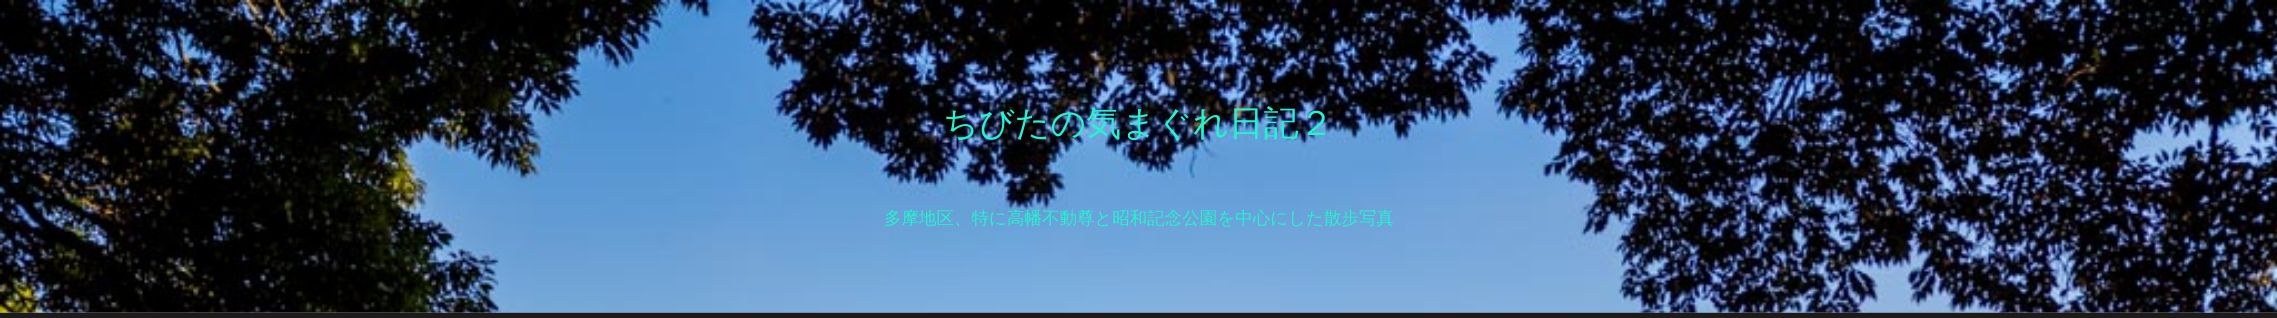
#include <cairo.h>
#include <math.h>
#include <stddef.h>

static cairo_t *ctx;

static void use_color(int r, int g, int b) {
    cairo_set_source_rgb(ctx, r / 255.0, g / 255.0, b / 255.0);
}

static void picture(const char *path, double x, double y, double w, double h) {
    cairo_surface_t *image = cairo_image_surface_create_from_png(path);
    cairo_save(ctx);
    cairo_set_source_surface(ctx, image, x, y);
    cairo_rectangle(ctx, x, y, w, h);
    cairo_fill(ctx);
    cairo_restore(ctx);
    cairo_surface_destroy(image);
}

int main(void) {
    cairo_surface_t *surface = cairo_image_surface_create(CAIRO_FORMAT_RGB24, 2277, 318);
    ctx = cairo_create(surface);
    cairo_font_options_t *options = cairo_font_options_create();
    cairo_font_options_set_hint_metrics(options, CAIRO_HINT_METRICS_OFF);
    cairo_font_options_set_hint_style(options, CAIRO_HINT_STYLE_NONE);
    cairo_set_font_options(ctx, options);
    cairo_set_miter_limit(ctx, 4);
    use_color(28, 26, 26);
    cairo_paint(ctx);
    use_color(117, 117, 117);
    cairo_rectangle(ctx, 0, 312, 2277, 1);
    cairo_fill(ctx);
    picture("img1.png", 0, 0, 2277, 313);
    cairo_select_font_face(ctx, "WenQuanYi Zen Hei Medium", CAIRO_FONT_SLANT_NORMAL, CAIRO_FONT_WEIGHT_NORMAL);
    cairo_set_font_size(ctx, 35);
    use_color(38, 242, 208);
    cairo_move_to(ctx, 943, 135);
    cairo_show_text(ctx, "ちびたの気まぐれ日記２");
    cairo_set_font_size(ctx, 17.5);
    cairo_move_to(ctx, 884, 224);
    cairo_show_text(ctx, "多摩地区、特に高幡不動尊と昭和記念公園を中心にした散歩写真");
    cairo_surface_write_to_png(surface, "result.png");
    cairo_font_options_destroy(options);
    cairo_destroy(ctx);
    cairo_surface_destroy(surface);
    return 0;
}
